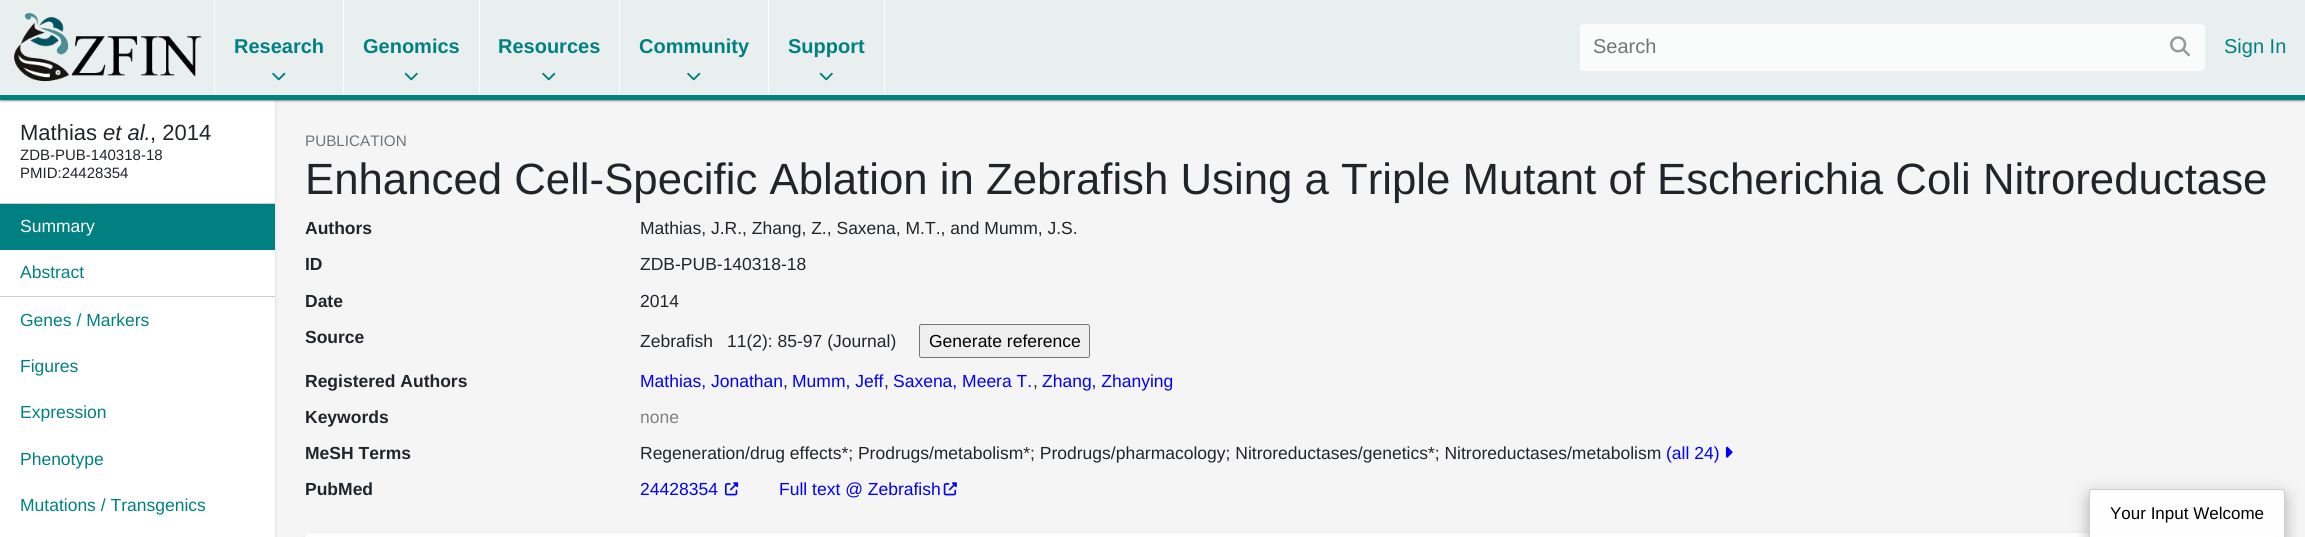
#include <cairo.h>
#include <math.h>
#include <stddef.h>

static cairo_t *ctx;

static void use_color(int r, int g, int b) {
    cairo_set_source_rgb(ctx, r / 255.0, g / 255.0, b / 255.0);
}

static void round_rect(double x, double y, double w, double h, double r) {
    cairo_new_sub_path(ctx);
    cairo_arc(ctx, x + w - r, y + h - r, r, 0, M_PI / 2);
    cairo_arc(ctx, x + r, y + h - r, r, M_PI / 2, M_PI);
    cairo_arc(ctx, x + r, y + r, r, M_PI, 1.5 * M_PI);
    cairo_arc(ctx, x + w - r, y + r, r, 1.5 * M_PI, 2 * M_PI);
    cairo_close_path(ctx);
}

static void shadow(double x, double y, double w, double h, double r, double blur, double alpha) {
    cairo_push_group_with_content(ctx, CAIRO_CONTENT_ALPHA);
    cairo_set_operator(ctx, CAIRO_OPERATOR_SOURCE);
    for (int i = 15; i >= -15 && fmin(w, h) + blur * i / 3 > 0; i -= 2) {
        double e = blur * i / 6;
        cairo_set_source_rgba(ctx, 0, 0, 0, alpha * erfc((i - 1) / 8.5) / 2);
        round_rect(x - e, y - e, w + 2 * e, h + 2 * e, fmax(0, fmin(r + e + blur * .6, fmin(w, h) / 2 + e)));
        cairo_fill(ctx);
    }
    cairo_pattern_t *soft = cairo_pop_group(ctx);
    cairo_mask(ctx, soft);
    cairo_pattern_destroy(soft);
}

static void picture(const char *path, double x, double y, double w, double h) {
    cairo_surface_t *image = cairo_image_surface_create_from_png(path);
    cairo_save(ctx);
    cairo_set_source_surface(ctx, image, x, y);
    cairo_rectangle(ctx, x, y, w, h);
    cairo_fill(ctx);
    cairo_restore(ctx);
    cairo_surface_destroy(image);
}

int main(void) {
    cairo_surface_t *surface = cairo_image_surface_create(CAIRO_FORMAT_RGB24, 2305, 537);
    ctx = cairo_create(surface);
    cairo_font_options_t *options = cairo_font_options_create();
    cairo_font_options_set_hint_metrics(options, CAIRO_HINT_METRICS_OFF);
    cairo_font_options_set_hint_style(options, CAIRO_HINT_STYLE_NONE);
    cairo_set_font_options(ctx, options);
    cairo_set_miter_limit(ctx, 4);
    use_color(245, 245, 245);
    cairo_paint(ctx);
    use_color(0, 0, 0);
    shadow(0, 101, 275, 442, 0, 2, 0.12);
    use_color(255, 255, 255);
    cairo_rectangle(ctx, 0, 100, 275, 437);
    cairo_fill(ctx);
    use_color(0, 0, 0);
    shadow(0, 1, 2305, 100, 0, 2, 0.12);
    shadow(0, 1, 2305, 100, 0, 0.5, 0.14);
    shadow(1, 4, 2303, 97, 0, 0.5, 0.2);
    use_color(233, 239, 239);
    cairo_rectangle(ctx, 0, 0, 2305, 95);
    cairo_fill(ctx);
    use_color(0, 128, 128);
    cairo_rectangle(ctx, 0, 95, 2305, 5);
    cairo_fill(ctx);
    picture("img1.png", 14, 12, 188, 70);
    use_color(252, 253, 253);
    cairo_rectangle(ctx, 214, 0, 1, 95);
    cairo_fill(ctx);
    cairo_select_font_face(ctx, "Liberation Sans", CAIRO_FONT_SLANT_NORMAL, CAIRO_FONT_WEIGHT_BOLD);
    cairo_set_font_size(ctx, 20);
    use_color(0, 128, 128);
    cairo_move_to(ctx, 234, 53);
    cairo_show_text(ctx, "Research");
    picture("img2.png", 272, 72, 14, 9);
    use_color(252, 253, 253);
    cairo_rectangle(ctx, 343, 0, 1, 95);
    cairo_fill(ctx);
    use_color(0, 128, 128);
    cairo_move_to(ctx, 363, 53);
    cairo_show_text(ctx, "Genomics");
    picture("img3.png", 404, 72, 14, 9);
    use_color(252, 253, 253);
    cairo_rectangle(ctx, 479, 0, 1, 95);
    cairo_fill(ctx);
    use_color(0, 128, 128);
    cairo_move_to(ctx, 498, 53);
    cairo_show_text(ctx, "Resources");
    picture("img2.png", 542, 72, 14, 9);
    use_color(252, 253, 253);
    cairo_rectangle(ctx, 619, 0, 1, 95);
    cairo_fill(ctx);
    use_color(0, 128, 128);
    cairo_move_to(ctx, 639, 53);
    cairo_show_text(ctx, "Community");
    picture("img2.png", 687, 72, 14, 9);
    use_color(252, 253, 253);
    cairo_rectangle(ctx, 884, 0, 1, 95);
    cairo_fill(ctx);
    cairo_rectangle(ctx, 768, 0, 1, 95);
    cairo_fill(ctx);
    use_color(0, 128, 128);
    cairo_move_to(ctx, 788, 53);
    cairo_show_text(ctx, "Support");
    picture("img3.png", 819, 72, 14, 9);
    use_color(250, 251, 251);
    round_rect(1580, 24, 625, 47, 4);
    cairo_fill(ctx);
    cairo_select_font_face(ctx, "Liberation Sans", CAIRO_FONT_SLANT_NORMAL, CAIRO_FONT_WEIGHT_NORMAL);
    use_color(117, 117, 117);
    cairo_move_to(ctx, 1593, 53);
    cairo_show_text(ctx, "Search");
    picture("img4.png", 2170, 36, 20, 21);
    use_color(0, 128, 128);
    cairo_move_to(ctx, 2224, 53);
    cairo_show_text(ctx, "Sign In");
    use_color(204, 204, 204);
    cairo_rectangle(ctx, 0, 203, 275, 1);
    cairo_fill(ctx);
    cairo_set_font_size(ctx, 22);
    use_color(33, 37, 41);
    cairo_move_to(ctx, 20, 140);
    cairo_show_text(ctx, "Mathias");
    cairo_select_font_face(ctx, "Liberation Sans", CAIRO_FONT_SLANT_ITALIC, CAIRO_FONT_WEIGHT_NORMAL);
    cairo_move_to(ctx, 103, 140);
    cairo_show_text(ctx, "et al.");
    cairo_select_font_face(ctx, "Liberation Sans", CAIRO_FONT_SLANT_NORMAL, CAIRO_FONT_WEIGHT_NORMAL);
    cairo_move_to(ctx, 150, 140);
    cairo_show_text(ctx, ", 2014");
    cairo_set_font_size(ctx, 15);
    cairo_move_to(ctx, 20, 160);
    cairo_show_text(ctx, "ZDB-PUB-140318-18");
    cairo_move_to(ctx, 20, 178);
    cairo_show_text(ctx, "PMID:24428354");
    use_color(0, 128, 128);
    cairo_rectangle(ctx, 0, 204, 275, 46);
    cairo_fill(ctx);
    cairo_set_font_size(ctx, 17.5);
    use_color(255, 255, 255);
    cairo_move_to(ctx, 20, 232);
    cairo_show_text(ctx, "Summary");
    use_color(204, 204, 204);
    cairo_rectangle(ctx, 0, 296, 275, 1);
    cairo_fill(ctx);
    use_color(0, 128, 128);
    cairo_move_to(ctx, 20, 278);
    cairo_show_text(ctx, "Abstract");
    cairo_move_to(ctx, 20, 326);
    cairo_show_text(ctx, "Genes / Markers");
    cairo_move_to(ctx, 20, 372);
    cairo_show_text(ctx, "Figures");
    cairo_move_to(ctx, 20, 418);
    cairo_show_text(ctx, "Expression");
    cairo_move_to(ctx, 20, 465);
    cairo_show_text(ctx, "Phenotype");
    cairo_move_to(ctx, 20, 511);
    cairo_show_text(ctx, "Mutations / Transgenics");
    cairo_set_font_size(ctx, 15.25);
    use_color(108, 117, 125);
    cairo_move_to(ctx, 305, 146);
    cairo_show_text(ctx, "PUBLICATION");
    cairo_set_font_size(ctx, 43.75);
    use_color(33, 37, 41);
    cairo_move_to(ctx, 305, 194);
    cairo_show_text(ctx, "Enhanced Cell-Specific Ablation in Zebrafish Using a Triple Mutant of Escherichia Coli Nitroreductase");
    cairo_select_font_face(ctx, "Liberation Sans", CAIRO_FONT_SLANT_NORMAL, CAIRO_FONT_WEIGHT_BOLD);
    cairo_set_font_size(ctx, 17.5);
    cairo_move_to(ctx, 305, 234);
    cairo_show_text(ctx, "Authors");
    cairo_select_font_face(ctx, "Liberation Sans", CAIRO_FONT_SLANT_NORMAL, CAIRO_FONT_WEIGHT_NORMAL);
    cairo_move_to(ctx, 640, 234);
    cairo_show_text(ctx, "Mathias, J.R., Zhang, Z., Saxena, M.T., and Mumm, J.S.");
    cairo_select_font_face(ctx, "Liberation Sans", CAIRO_FONT_SLANT_NORMAL, CAIRO_FONT_WEIGHT_BOLD);
    cairo_move_to(ctx, 305, 270);
    cairo_show_text(ctx, "ID");
    cairo_select_font_face(ctx, "Liberation Sans", CAIRO_FONT_SLANT_NORMAL, CAIRO_FONT_WEIGHT_NORMAL);
    cairo_move_to(ctx, 640, 270);
    cairo_show_text(ctx, "ZDB-PUB-140318-18");
    cairo_select_font_face(ctx, "Liberation Sans", CAIRO_FONT_SLANT_NORMAL, CAIRO_FONT_WEIGHT_BOLD);
    cairo_move_to(ctx, 305, 307);
    cairo_show_text(ctx, "Date");
    cairo_select_font_face(ctx, "Liberation Sans", CAIRO_FONT_SLANT_NORMAL, CAIRO_FONT_WEIGHT_NORMAL);
    cairo_move_to(ctx, 640, 307);
    cairo_show_text(ctx, "2014");
    cairo_select_font_face(ctx, "Liberation Sans", CAIRO_FONT_SLANT_NORMAL, CAIRO_FONT_WEIGHT_BOLD);
    cairo_move_to(ctx, 305, 343);
    cairo_show_text(ctx, "Source");
    cairo_select_font_face(ctx, "Liberation Sans", CAIRO_FONT_SLANT_NORMAL, CAIRO_FONT_WEIGHT_NORMAL);
    cairo_move_to(ctx, 640, 347);
    cairo_show_text(ctx, "Zebrafish");
    cairo_move_to(ctx, 727, 347);
    cairo_show_text(ctx, "11(2): 85-97 (Journal)");
    use_color(239, 239, 239);
    round_rect(919.5, 324.5, 170, 33, 2);
    cairo_fill_preserve(ctx);
    use_color(118, 118, 118);
    cairo_set_line_width(ctx, 1);
    cairo_stroke(ctx);
    use_color(0, 0, 0);
    cairo_move_to(ctx, 929, 347);
    cairo_show_text(ctx, "Generate reference");
    cairo_select_font_face(ctx, "Liberation Sans", CAIRO_FONT_SLANT_NORMAL, CAIRO_FONT_WEIGHT_BOLD);
    use_color(33, 37, 41);
    cairo_move_to(ctx, 305, 387);
    cairo_show_text(ctx, "Registered Authors");
    cairo_select_font_face(ctx, "Liberation Sans", CAIRO_FONT_SLANT_NORMAL, CAIRO_FONT_WEIGHT_NORMAL);
    use_color(0, 0, 255);
    cairo_move_to(ctx, 640, 387);
    cairo_show_text(ctx, "Mathias, Jonathan");
    use_color(33, 37, 41);
    cairo_move_to(ctx, 783, 387);
    cairo_show_text(ctx, ",");
    use_color(0, 0, 255);
    cairo_move_to(ctx, 792, 387);
    cairo_show_text(ctx, "Mumm, Jeff");
    use_color(33, 37, 41);
    cairo_move_to(ctx, 884, 387);
    cairo_show_text(ctx, ",");
    use_color(0, 0, 255);
    cairo_move_to(ctx, 893, 387);
    cairo_show_text(ctx, "Saxena, Meera T.");
    use_color(33, 37, 41);
    cairo_move_to(ctx, 1033, 387);
    cairo_show_text(ctx, ",");
    use_color(0, 0, 255);
    cairo_move_to(ctx, 1042, 387);
    cairo_show_text(ctx, "Zhang, Zhanying");
    cairo_select_font_face(ctx, "Liberation Sans", CAIRO_FONT_SLANT_NORMAL, CAIRO_FONT_WEIGHT_BOLD);
    use_color(33, 37, 41);
    cairo_move_to(ctx, 305, 423);
    cairo_show_text(ctx, "Keywords");
    cairo_select_font_face(ctx, "Liberation Sans", CAIRO_FONT_SLANT_NORMAL, CAIRO_FONT_WEIGHT_NORMAL);
    use_color(128, 128, 128);
    cairo_move_to(ctx, 640, 423);
    cairo_show_text(ctx, "none");
    cairo_select_font_face(ctx, "Liberation Sans", CAIRO_FONT_SLANT_NORMAL, CAIRO_FONT_WEIGHT_BOLD);
    use_color(33, 37, 41);
    cairo_move_to(ctx, 305, 459);
    cairo_show_text(ctx, "MeSH Terms");
    cairo_select_font_face(ctx, "Liberation Sans", CAIRO_FONT_SLANT_NORMAL, CAIRO_FONT_WEIGHT_NORMAL);
    cairo_move_to(ctx, 640, 459);
    cairo_show_text(ctx, "Regeneration/drug effects*; Prodrugs/metabolism*; Prodrugs/pharmacology; Nitroreductases/genetics*; Nitroreductases/metabolism");
    use_color(0, 0, 255);
    cairo_move_to(ctx, 1666, 459);
    cairo_show_text(ctx, "(all 24)");
    picture("img5.png", 1725, 446, 8, 12);
    cairo_select_font_face(ctx, "Liberation Sans", CAIRO_FONT_SLANT_NORMAL, CAIRO_FONT_WEIGHT_BOLD);
    use_color(33, 37, 41);
    cairo_move_to(ctx, 305, 495);
    cairo_show_text(ctx, "PubMed");
    cairo_select_font_face(ctx, "Liberation Sans", CAIRO_FONT_SLANT_NORMAL, CAIRO_FONT_WEIGHT_NORMAL);
    use_color(0, 0, 255);
    cairo_move_to(ctx, 640, 495);
    cairo_show_text(ctx, "24428354");
    picture("img6.png", 725, 482, 14, 14);
    cairo_move_to(ctx, 779, 495);
    cairo_show_text(ctx, "Full text @ Zebrafish");
    picture("img7.png", 943, 482, 14, 14);
    use_color(0, 0, 0);
    shadow(305, 534, 1970, 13, 4, 2, 0.12);
    use_color(255, 255, 255);
    round_rect(305, 533, 1970, 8, 4);
    cairo_fill(ctx);
    cairo_save(ctx);
    cairo_set_fill_rule(ctx, CAIRO_FILL_RULE_EVEN_ODD);
    cairo_new_path(ctx);
    cairo_move_to(ctx, 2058, 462);
    cairo_line_to(ctx, 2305, 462);
    cairo_line_to(ctx, 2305, 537);
    cairo_line_to(ctx, 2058, 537);
    cairo_close_path(ctx);
    cairo_move_to(ctx, 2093, 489);
    cairo_line_to(ctx, 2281, 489);
    cairo_curve_to(ctx, 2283, 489, 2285, 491, 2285, 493);
    cairo_line_to(ctx, 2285, 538);
    cairo_line_to(ctx, 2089, 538);
    cairo_line_to(ctx, 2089, 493);
    cairo_curve_to(ctx, 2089, 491, 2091, 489, 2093, 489);
    cairo_close_path(ctx);
    cairo_clip(ctx);
    use_color(0, 0, 0);
    shadow(2086, 490, 202, 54, 6, 9, 0.12);
    cairo_restore(ctx);
    cairo_save(ctx);
    cairo_set_fill_rule(ctx, CAIRO_FILL_RULE_EVEN_ODD);
    cairo_new_path(ctx);
    cairo_move_to(ctx, 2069, 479);
    cairo_line_to(ctx, 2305, 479);
    cairo_line_to(ctx, 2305, 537);
    cairo_line_to(ctx, 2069, 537);
    cairo_close_path(ctx);
    cairo_move_to(ctx, 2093, 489);
    cairo_line_to(ctx, 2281, 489);
    cairo_curve_to(ctx, 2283, 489, 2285, 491, 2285, 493);
    cairo_line_to(ctx, 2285, 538);
    cairo_line_to(ctx, 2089, 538);
    cairo_line_to(ctx, 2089, 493);
    cairo_curve_to(ctx, 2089, 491, 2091, 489, 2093, 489);
    cairo_close_path(ctx);
    cairo_clip(ctx);
    use_color(0, 0, 0);
    shadow(2088, 498, 198, 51, 5, 6, 0.14);
    cairo_restore(ctx);
    cairo_set_source_rgba(ctx, 1, 1, 1, 0.9);
    cairo_new_path(ctx);
    cairo_move_to(ctx, 2093, 489);
    cairo_line_to(ctx, 2281, 489);
    cairo_curve_to(ctx, 2283, 489, 2285, 491, 2285, 493);
    cairo_line_to(ctx, 2285, 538);
    cairo_line_to(ctx, 2089, 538);
    cairo_line_to(ctx, 2089, 493);
    cairo_curve_to(ctx, 2089, 491, 2091, 489, 2093, 489);
    cairo_close_path(ctx);
    cairo_fill(ctx);
    use_color(204, 204, 204);
    cairo_set_fill_rule(ctx, CAIRO_FILL_RULE_EVEN_ODD);
    cairo_new_path(ctx);
    cairo_move_to(ctx, 2092, 489);
    cairo_line_to(ctx, 2281, 489);
    cairo_curve_to(ctx, 2283, 489, 2285, 490, 2285, 492);
    cairo_line_to(ctx, 2285, 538);
    cairo_line_to(ctx, 2089, 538);
    cairo_line_to(ctx, 2089, 492);
    cairo_curve_to(ctx, 2089, 490, 2090, 489, 2092, 489);
    cairo_close_path(ctx);
    cairo_move_to(ctx, 2092, 490);
    cairo_line_to(ctx, 2281, 490);
    cairo_curve_to(ctx, 2283, 490, 2284, 491, 2284, 492);
    cairo_line_to(ctx, 2284, 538);
    cairo_line_to(ctx, 2090, 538);
    cairo_line_to(ctx, 2090, 492);
    cairo_curve_to(ctx, 2090, 491, 2091, 490, 2092, 490);
    cairo_close_path(ctx);
    cairo_fill(ctx);
    cairo_set_font_size(ctx, 17);
    use_color(0, 0, 0);
    cairo_move_to(ctx, 2110, 519);
    cairo_show_text(ctx, "Your Input Welcome");
    cairo_surface_write_to_png(surface, "result.png");
    cairo_font_options_destroy(options);
    cairo_destroy(ctx);
    cairo_surface_destroy(surface);
    return 0;
}
